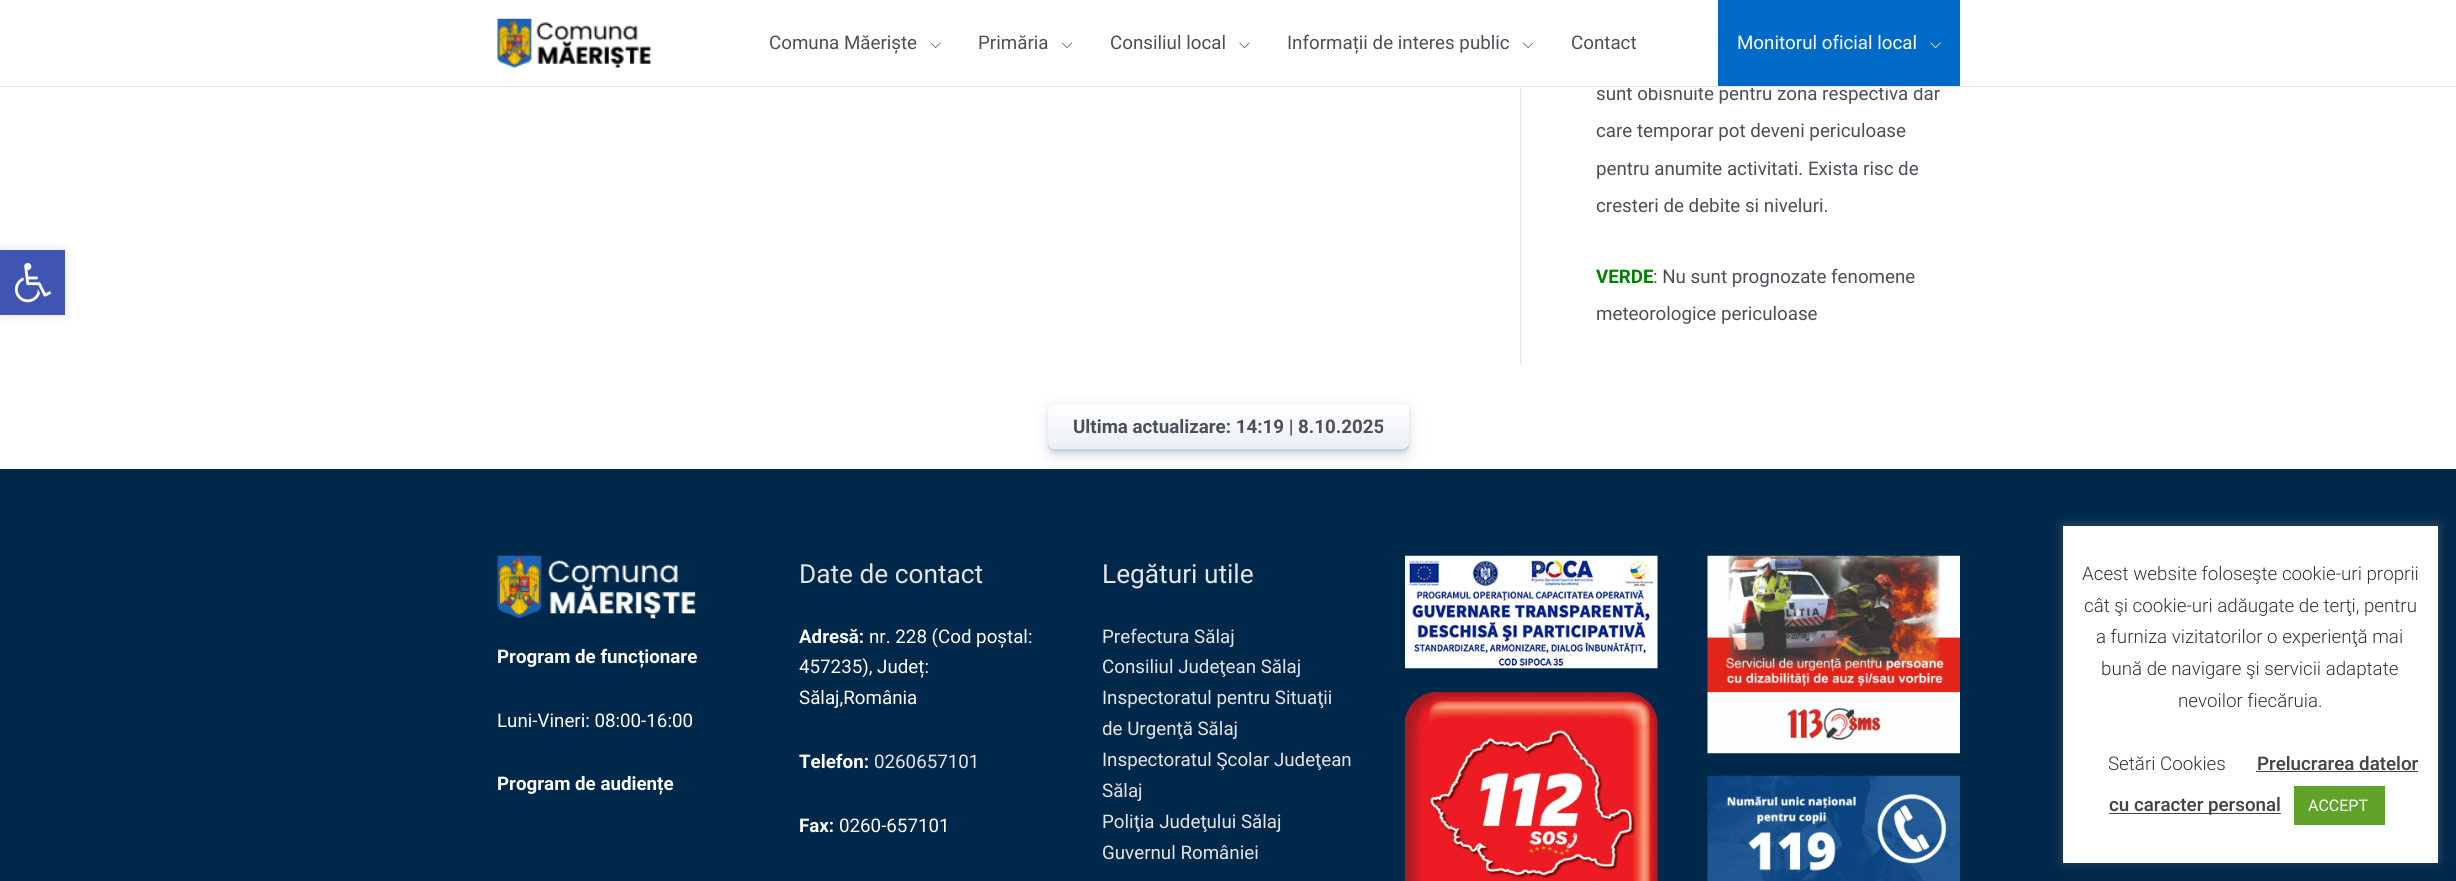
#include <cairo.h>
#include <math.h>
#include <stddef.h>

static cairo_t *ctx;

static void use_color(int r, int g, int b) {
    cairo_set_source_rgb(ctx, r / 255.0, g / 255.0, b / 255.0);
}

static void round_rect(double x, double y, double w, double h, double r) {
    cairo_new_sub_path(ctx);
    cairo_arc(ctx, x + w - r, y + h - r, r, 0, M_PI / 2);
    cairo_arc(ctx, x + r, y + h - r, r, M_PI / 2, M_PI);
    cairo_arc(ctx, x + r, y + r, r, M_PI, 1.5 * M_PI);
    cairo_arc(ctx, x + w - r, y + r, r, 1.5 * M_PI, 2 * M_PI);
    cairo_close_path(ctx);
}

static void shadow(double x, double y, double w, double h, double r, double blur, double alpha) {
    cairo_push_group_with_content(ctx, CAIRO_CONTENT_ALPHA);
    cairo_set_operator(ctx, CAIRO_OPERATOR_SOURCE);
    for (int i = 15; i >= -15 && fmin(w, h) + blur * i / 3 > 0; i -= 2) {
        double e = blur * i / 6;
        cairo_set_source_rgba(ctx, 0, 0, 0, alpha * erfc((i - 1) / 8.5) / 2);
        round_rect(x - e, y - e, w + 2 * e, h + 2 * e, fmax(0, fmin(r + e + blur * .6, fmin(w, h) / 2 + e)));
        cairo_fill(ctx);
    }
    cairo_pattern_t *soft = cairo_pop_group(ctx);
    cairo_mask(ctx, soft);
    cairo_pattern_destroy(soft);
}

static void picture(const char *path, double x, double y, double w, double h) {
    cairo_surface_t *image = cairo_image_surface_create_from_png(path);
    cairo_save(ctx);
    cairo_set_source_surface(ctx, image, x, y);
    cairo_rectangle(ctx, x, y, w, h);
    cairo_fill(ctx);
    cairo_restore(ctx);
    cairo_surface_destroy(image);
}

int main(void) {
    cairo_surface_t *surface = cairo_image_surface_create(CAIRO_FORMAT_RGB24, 2456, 881);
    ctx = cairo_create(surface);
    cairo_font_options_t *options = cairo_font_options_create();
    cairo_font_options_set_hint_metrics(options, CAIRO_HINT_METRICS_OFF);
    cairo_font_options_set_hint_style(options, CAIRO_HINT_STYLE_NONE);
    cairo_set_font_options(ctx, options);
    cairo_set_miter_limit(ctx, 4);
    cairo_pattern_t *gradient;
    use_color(255, 255, 255);
    cairo_paint(ctx);
    use_color(0, 0, 0);
    shadow(0, 250, 65, 65, 0, 6, 0.1);
    use_color(64, 84, 178);
    cairo_rectangle(ctx, 0, 250, 65, 65);
    cairo_fill(ctx);
    picture("img1.png", 14, 263, 38, 40);
    cairo_select_font_face(ctx, "Roboto", CAIRO_FONT_SLANT_NORMAL, CAIRO_FONT_WEIGHT_NORMAL);
    cairo_set_font_size(ctx, 18.75);
    use_color(75, 79, 88);
    cairo_move_to(ctx, 1596, 100);
    cairo_show_text(ctx, "sunt obisnuite pentru zona respectiva dar");
    use_color(255, 255, 255);
    cairo_rectangle(ctx, 1627, 85, 295, 3);
    cairo_fill(ctx);
    use_color(229, 229, 229);
    cairo_rectangle(ctx, 0, 86, 2456, 1);
    cairo_fill(ctx);
    picture("img2.png", 497, 18, 155, 50);
    use_color(75, 79, 88);
    cairo_move_to(ctx, 769, 49);
    cairo_show_text(ctx, "Comuna Măeriște");
    picture("img3.png", 930, 42, 11, 6);
    cairo_move_to(ctx, 978, 49);
    cairo_show_text(ctx, "Primăria");
    picture("img4.png", 1061, 42, 11, 6);
    cairo_move_to(ctx, 1110, 49);
    cairo_show_text(ctx, "Consiliul local");
    picture("img5.png", 1239, 42, 11, 6);
    cairo_move_to(ctx, 1287, 49);
    cairo_show_text(ctx, "Informații de interes public");
    picture("img6.png", 1523, 42, 11, 6);
    cairo_move_to(ctx, 1571, 49);
    cairo_show_text(ctx, "Contact");
    use_color(0, 106, 200);
    cairo_rectangle(ctx, 1718, 0, 242, 86);
    cairo_fill(ctx);
    use_color(255, 255, 255);
    cairo_move_to(ctx, 1737, 49);
    cairo_show_text(ctx, "Monitorul oficial local");
    picture("img7.png", 1930, 42, 11, 6);
    use_color(229, 229, 229);
    cairo_rectangle(ctx, 1520, 88, 1, 277);
    cairo_fill(ctx);
    use_color(75, 79, 88);
    cairo_move_to(ctx, 1596, 137);
    cairo_show_text(ctx, "care temporar pot deveni periculoase");
    cairo_move_to(ctx, 1596, 175);
    cairo_show_text(ctx, "pentru anumite activitati. Exista risc de");
    cairo_move_to(ctx, 1596, 212);
    cairo_show_text(ctx, "cresteri de debite si niveluri.");
    cairo_select_font_face(ctx, "Roboto", CAIRO_FONT_SLANT_NORMAL, CAIRO_FONT_WEIGHT_BOLD);
    use_color(0, 128, 0);
    cairo_move_to(ctx, 1596, 283);
    cairo_show_text(ctx, "VERDE");
    cairo_select_font_face(ctx, "Roboto", CAIRO_FONT_SLANT_NORMAL, CAIRO_FONT_WEIGHT_NORMAL);
    use_color(75, 79, 88);
    cairo_move_to(ctx, 1653, 283);
    cairo_show_text(ctx, ": Nu sunt prognozate fenomene");
    cairo_move_to(ctx, 1596, 320);
    cairo_show_text(ctx, "meteorologice periculoase");
    use_color(107, 124, 147);
    shadow(1048, 406, 361, 48, 6, 2.5, 0.2);
    shadow(1048, 410, 361, 48, 6, 9.5, 0.15);
    gradient = cairo_pattern_create_linear(1228, 404, 1228, 451);
    cairo_pattern_add_color_stop_rgba(gradient, 0, 1, 1, 1, 1);
    cairo_pattern_add_color_stop_rgba(gradient, 1, 0.918, 0.933, 0.953, 1);
    cairo_set_source(ctx, gradient);
    cairo_pattern_destroy(gradient);
    round_rect(1048, 404, 361, 47, 6);
    cairo_fill(ctx);
    cairo_select_font_face(ctx, "Roboto", CAIRO_FONT_SLANT_NORMAL, CAIRO_FONT_WEIGHT_BOLD);
    use_color(75, 79, 88);
    cairo_move_to(ctx, 1073, 433);
    cairo_show_text(ctx, "Ultima actualizare: 14:19 | 8.10.2025");
    use_color(194, 207, 222);
    cairo_new_path(ctx);
    cairo_move_to(ctx, 1048, 442);
    cairo_line_to(ctx, 1048, 445);
    cairo_curve_to(ctx, 1048, 448, 1051, 451, 1054, 451);
    cairo_line_to(ctx, 1403, 451);
    cairo_curve_to(ctx, 1406, 451, 1409, 448, 1409, 445);
    cairo_line_to(ctx, 1409, 442);
    cairo_curve_to(ctx, 1409, 446, 1406, 449, 1402, 449);
    cairo_line_to(ctx, 1054, 449);
    cairo_curve_to(ctx, 1050, 449, 1048, 446, 1048, 442);
    cairo_close_path(ctx);
    cairo_fill(ctx);
    use_color(0, 40, 74);
    cairo_rectangle(ctx, 0, 469, 2456, 412);
    cairo_fill(ctx);
    picture("img8.png", 497, 555, 199, 64);
    use_color(255, 255, 255);
    cairo_move_to(ctx, 497, 663);
    cairo_show_text(ctx, "Program de funcționare");
    cairo_select_font_face(ctx, "Roboto", CAIRO_FONT_SLANT_NORMAL, CAIRO_FONT_WEIGHT_NORMAL);
    cairo_move_to(ctx, 497, 727);
    cairo_show_text(ctx, "Luni-Vineri: 08:00-16:00");
    cairo_select_font_face(ctx, "Roboto", CAIRO_FONT_SLANT_NORMAL, CAIRO_FONT_WEIGHT_BOLD);
    cairo_move_to(ctx, 497, 790);
    cairo_show_text(ctx, "Program de audiențe");
    cairo_select_font_face(ctx, "Roboto", CAIRO_FONT_SLANT_NORMAL, CAIRO_FONT_WEIGHT_NORMAL);
    cairo_set_font_size(ctx, 26.25);
    use_color(229, 229, 229);
    cairo_move_to(ctx, 799, 583);
    cairo_show_text(ctx, "Date de contact");
    cairo_select_font_face(ctx, "Roboto", CAIRO_FONT_SLANT_NORMAL, CAIRO_FONT_WEIGHT_BOLD);
    cairo_set_font_size(ctx, 18.75);
    use_color(255, 255, 255);
    cairo_move_to(ctx, 799, 643);
    cairo_show_text(ctx, "Adresă:");
    cairo_select_font_face(ctx, "Roboto", CAIRO_FONT_SLANT_NORMAL, CAIRO_FONT_WEIGHT_NORMAL);
    cairo_move_to(ctx, 869, 643);
    cairo_show_text(ctx, "nr. 228 (Cod poștal:");
    cairo_move_to(ctx, 799, 673);
    cairo_show_text(ctx, "457235), Județ:");
    cairo_move_to(ctx, 799, 704);
    cairo_show_text(ctx, "Sălaj,România");
    cairo_select_font_face(ctx, "Roboto", CAIRO_FONT_SLANT_NORMAL, CAIRO_FONT_WEIGHT_BOLD);
    cairo_move_to(ctx, 799, 768);
    cairo_show_text(ctx, "Telefon:");
    cairo_select_font_face(ctx, "Roboto", CAIRO_FONT_SLANT_NORMAL, CAIRO_FONT_WEIGHT_NORMAL);
    use_color(229, 229, 229);
    cairo_move_to(ctx, 874, 768);
    cairo_show_text(ctx, "0260657101");
    cairo_select_font_face(ctx, "Roboto", CAIRO_FONT_SLANT_NORMAL, CAIRO_FONT_WEIGHT_BOLD);
    use_color(255, 255, 255);
    cairo_move_to(ctx, 799, 832);
    cairo_show_text(ctx, "Fax:");
    cairo_select_font_face(ctx, "Roboto", CAIRO_FONT_SLANT_NORMAL, CAIRO_FONT_WEIGHT_NORMAL);
    cairo_move_to(ctx, 839, 832);
    cairo_show_text(ctx, "0260-657101");
    cairo_set_font_size(ctx, 26.25);
    use_color(229, 229, 229);
    cairo_move_to(ctx, 1102, 583);
    cairo_show_text(ctx, "Legături utile");
    cairo_set_font_size(ctx, 18.75);
    cairo_move_to(ctx, 1102, 643);
    cairo_show_text(ctx, "Prefectura Sălaj");
    cairo_move_to(ctx, 1102, 673);
    cairo_show_text(ctx, "Consiliul Judeţean Sălaj");
    cairo_move_to(ctx, 1102, 704);
    cairo_show_text(ctx, "Inspectoratul pentru Situaţii");
    cairo_move_to(ctx, 1102, 735);
    cairo_show_text(ctx, "de Urgenţă Sălaj");
    cairo_move_to(ctx, 1102, 766);
    cairo_show_text(ctx, "Inspectoratul Şcolar Judeţean");
    cairo_move_to(ctx, 1102, 797);
    cairo_show_text(ctx, "Sălaj");
    cairo_move_to(ctx, 1102, 828);
    cairo_show_text(ctx, "Poliţia Judeţului Sălaj");
    cairo_move_to(ctx, 1102, 859);
    cairo_show_text(ctx, "Guvernul României");
    picture("img9.png", 1405, 555, 253, 114);
    picture("img10.png", 1405, 692, 253, 189);
    picture("img11.png", 1707, 555, 253, 199);
    picture("img12.png", 1707, 775, 253, 106);
    use_color(172, 171, 171);
    shadow(2063, 525, 375, 336, 0, 6, 0.3);
    use_color(255, 255, 255);
    cairo_rectangle(ctx, 2063, 526, 375, 337);
    cairo_fill(ctx);
    cairo_select_font_face(ctx, "Roboto Light", CAIRO_FONT_SLANT_NORMAL, CAIRO_FONT_WEIGHT_NORMAL);
    use_color(51, 51, 51);
    cairo_move_to(ctx, 2082, 580);
    cairo_show_text(ctx, "Acest website foloseşte cookie-uri proprii");
    cairo_move_to(ctx, 2084, 612);
    cairo_show_text(ctx, "cât şi cookie-uri adăugate de terţi, pentru");
    cairo_move_to(ctx, 2096, 643);
    cairo_show_text(ctx, "a furniza vizitatorilor o experienţă mai");
    cairo_move_to(ctx, 2101, 675);
    cairo_show_text(ctx, "bună de navigare şi servicii adaptate");
    cairo_move_to(ctx, 2178, 707);
    cairo_show_text(ctx, "nevoilor fiecăruia.");
    cairo_move_to(ctx, 2108, 770);
    cairo_show_text(ctx, "Setări Cookies");
    cairo_select_font_face(ctx, "Roboto Medium", CAIRO_FONT_SLANT_NORMAL, CAIRO_FONT_WEIGHT_NORMAL);
    use_color(68, 68, 68);
    cairo_move_to(ctx, 2257, 770);
    cairo_show_text(ctx, "Prelucrarea datelor");
    cairo_rectangle(ctx, 2256, 771, 162, 1);
    cairo_fill(ctx);
    cairo_rectangle(ctx, 2109, 813, 172, 1);
    cairo_fill(ctx);
    cairo_move_to(ctx, 2109, 811);
    cairo_show_text(ctx, "cu caracter personal");
    use_color(97, 162, 41);
    cairo_rectangle(ctx, 2294, 786, 91, 39);
    cairo_fill(ctx);
    cairo_select_font_face(ctx, "Roboto", CAIRO_FONT_SLANT_NORMAL, CAIRO_FONT_WEIGHT_NORMAL);
    cairo_set_font_size(ctx, 16);
    use_color(255, 255, 255);
    cairo_move_to(ctx, 2308, 811);
    cairo_show_text(ctx, "ACCEPT");
    cairo_surface_write_to_png(surface, "result.png");
    cairo_font_options_destroy(options);
    cairo_destroy(ctx);
    cairo_surface_destroy(surface);
    return 0;
}
